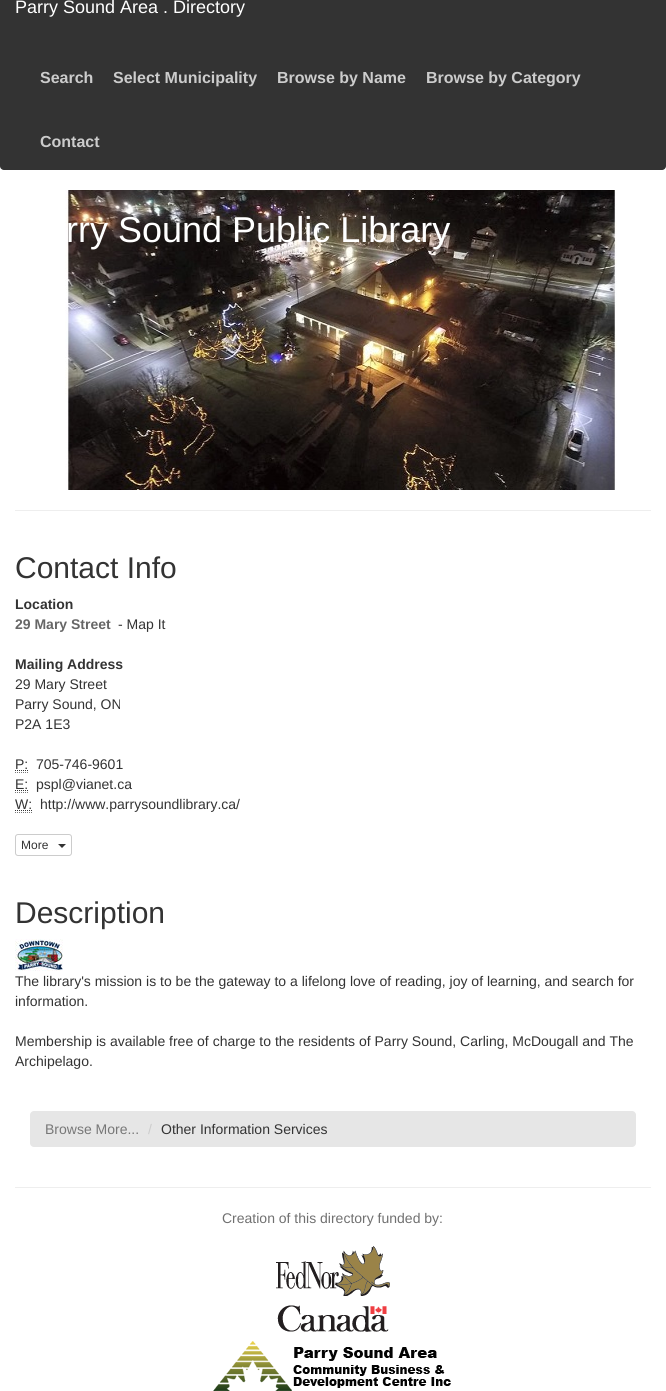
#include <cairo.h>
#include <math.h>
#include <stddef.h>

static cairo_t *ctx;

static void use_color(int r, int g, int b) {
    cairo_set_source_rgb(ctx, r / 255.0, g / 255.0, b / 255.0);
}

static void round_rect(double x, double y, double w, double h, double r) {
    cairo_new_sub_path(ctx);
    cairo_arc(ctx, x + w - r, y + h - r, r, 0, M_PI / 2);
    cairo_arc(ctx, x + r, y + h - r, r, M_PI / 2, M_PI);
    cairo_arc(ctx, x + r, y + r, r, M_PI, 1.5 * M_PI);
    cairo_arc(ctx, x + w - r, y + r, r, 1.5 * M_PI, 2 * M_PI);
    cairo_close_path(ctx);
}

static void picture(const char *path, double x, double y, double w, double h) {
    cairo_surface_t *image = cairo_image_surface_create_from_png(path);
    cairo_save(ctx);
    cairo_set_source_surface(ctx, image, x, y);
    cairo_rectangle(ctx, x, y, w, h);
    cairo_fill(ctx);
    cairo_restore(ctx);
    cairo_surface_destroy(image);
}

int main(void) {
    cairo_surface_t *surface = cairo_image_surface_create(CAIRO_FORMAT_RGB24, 666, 1391);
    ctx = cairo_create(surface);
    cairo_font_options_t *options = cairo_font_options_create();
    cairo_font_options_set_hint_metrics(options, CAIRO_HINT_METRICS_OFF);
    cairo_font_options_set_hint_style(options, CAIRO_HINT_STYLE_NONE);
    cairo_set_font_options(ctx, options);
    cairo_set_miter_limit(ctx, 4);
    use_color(255, 255, 255);
    cairo_paint(ctx);
    use_color(51, 51, 51);
    round_rect(0, -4, 666, 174, 4);
    cairo_fill(ctx);
    cairo_select_font_face(ctx, "Liberation Sans", CAIRO_FONT_SLANT_NORMAL, CAIRO_FONT_WEIGHT_NORMAL);
    cairo_set_font_size(ctx, 18);
    use_color(255, 255, 255);
    cairo_move_to(ctx, 15, 13);
    cairo_show_text(ctx, "Parry Sound Area . Directory");
    cairo_select_font_face(ctx, "Liberation Sans", CAIRO_FONT_SLANT_NORMAL, CAIRO_FONT_WEIGHT_BOLD);
    cairo_set_font_size(ctx, 16);
    use_color(204, 204, 204);
    cairo_move_to(ctx, 40, 83);
    cairo_show_text(ctx, "Search");
    cairo_move_to(ctx, 113, 83);
    cairo_show_text(ctx, "Select Municipality");
    cairo_move_to(ctx, 277, 83);
    cairo_show_text(ctx, "Browse by Name");
    cairo_move_to(ctx, 426, 83);
    cairo_show_text(ctx, "Browse by Category");
    cairo_move_to(ctx, 40, 147);
    cairo_show_text(ctx, "Contact");
    picture("img1.png", 65, 190, 552, 300);
    cairo_select_font_face(ctx, "Liberation Sans", CAIRO_FONT_SLANT_NORMAL, CAIRO_FONT_WEIGHT_NORMAL);
    cairo_set_font_size(ctx, 36);
    use_color(255, 255, 255);
    cairo_move_to(ctx, 66, 242);
    cairo_show_text(ctx, "rry Sound Public Library");
    use_color(238, 238, 238);
    cairo_rectangle(ctx, 15, 510, 636, 1);
    cairo_fill(ctx);
    cairo_set_font_size(ctx, 30);
    use_color(51, 51, 51);
    cairo_move_to(ctx, 15, 578);
    cairo_show_text(ctx, "Contact Info");
    cairo_select_font_face(ctx, "Liberation Sans", CAIRO_FONT_SLANT_NORMAL, CAIRO_FONT_WEIGHT_BOLD);
    cairo_set_font_size(ctx, 14);
    cairo_move_to(ctx, 15, 609);
    cairo_show_text(ctx, "Location");
    use_color(102, 102, 102);
    cairo_move_to(ctx, 15, 629);
    cairo_show_text(ctx, "29 Mary Street");
    cairo_select_font_face(ctx, "Liberation Sans", CAIRO_FONT_SLANT_NORMAL, CAIRO_FONT_WEIGHT_NORMAL);
    use_color(51, 51, 51);
    cairo_move_to(ctx, 118, 629);
    cairo_show_text(ctx, "- Map It");
    cairo_select_font_face(ctx, "Liberation Sans", CAIRO_FONT_SLANT_NORMAL, CAIRO_FONT_WEIGHT_BOLD);
    cairo_move_to(ctx, 15, 669);
    cairo_show_text(ctx, "Mailing Address");
    cairo_select_font_face(ctx, "Liberation Sans", CAIRO_FONT_SLANT_NORMAL, CAIRO_FONT_WEIGHT_NORMAL);
    cairo_move_to(ctx, 15, 689);
    cairo_show_text(ctx, "29 Mary Street");
    cairo_move_to(ctx, 15, 709);
    cairo_show_text(ctx, "Parry Sound, ON");
    cairo_move_to(ctx, 15, 729);
    cairo_show_text(ctx, "P2A 1E3");
    cairo_move_to(ctx, 15, 769);
    cairo_show_text(ctx, "P:");
    cairo_new_path(ctx);
    cairo_move_to(ctx, 15, 772.5);
    cairo_line_to(ctx, 28, 772.5);
    use_color(119, 119, 119);
    cairo_set_line_width(ctx, 1);
    cairo_set_dash(ctx, (double[]){1, 1}, 2, 0);
    cairo_stroke(ctx);
    cairo_new_path(ctx);
    cairo_move_to(ctx, 15, 770.5);
    cairo_line_to(ctx, 28, 770.5);
    use_color(51, 51, 51);
    cairo_stroke(ctx);
    cairo_move_to(ctx, 36, 769);
    cairo_show_text(ctx, "705-746-9601");
    cairo_move_to(ctx, 15, 789);
    cairo_show_text(ctx, "E:");
    cairo_new_path(ctx);
    cairo_move_to(ctx, 15, 792.5);
    cairo_line_to(ctx, 28, 792.5);
    use_color(119, 119, 119);
    cairo_stroke(ctx);
    cairo_new_path(ctx);
    cairo_move_to(ctx, 15, 790.5);
    cairo_line_to(ctx, 28, 790.5);
    use_color(51, 51, 51);
    cairo_stroke(ctx);
    cairo_move_to(ctx, 36, 789);
    cairo_show_text(ctx, "pspl@vianet.ca");
    cairo_move_to(ctx, 15, 809);
    cairo_show_text(ctx, "W:");
    cairo_new_path(ctx);
    cairo_move_to(ctx, 15, 812.5);
    cairo_line_to(ctx, 32, 812.5);
    use_color(119, 119, 119);
    cairo_stroke(ctx);
    cairo_new_path(ctx);
    cairo_move_to(ctx, 15, 810.5);
    cairo_line_to(ctx, 32, 810.5);
    use_color(51, 51, 51);
    cairo_stroke(ctx);
    cairo_move_to(ctx, 40, 809);
    cairo_show_text(ctx, "http://www.parrysoundlibrary.ca/");
    round_rect(15.5, 834.5, 56, 21, 2.5);
    use_color(204, 204, 204);
    cairo_set_dash(ctx, NULL, 0, 0);
    cairo_stroke(ctx);
    cairo_set_font_size(ctx, 12);
    use_color(51, 51, 51);
    cairo_move_to(ctx, 21, 849);
    cairo_show_text(ctx, "More");
    cairo_new_path(ctx);
    cairo_move_to(ctx, 58, 844);
    cairo_line_to(ctx, 66, 844);
    cairo_line_to(ctx, 62, 848);
    cairo_close_path(ctx);
    cairo_fill(ctx);
    cairo_set_font_size(ctx, 30);
    cairo_move_to(ctx, 15, 923);
    cairo_show_text(ctx, "Description");
    picture("img2.png", 15, 939, 48, 32);
    cairo_set_font_size(ctx, 14);
    cairo_move_to(ctx, 15, 986);
    cairo_show_text(ctx, "The library's mission is to be the gateway to a lifelong love of reading, joy of learning, and search for");
    cairo_move_to(ctx, 15, 1006);
    cairo_show_text(ctx, "information.");
    cairo_move_to(ctx, 15, 1046);
    cairo_show_text(ctx, "Membership is available free of charge to the residents of Parry Sound, Carling, McDougall and The");
    cairo_move_to(ctx, 15, 1066);
    cairo_show_text(ctx, "Archipelago.");
    use_color(230, 230, 230);
    round_rect(30, 1111, 606, 36, 4);
    cairo_fill(ctx);
    use_color(119, 119, 119);
    cairo_move_to(ctx, 45, 1134);
    cairo_show_text(ctx, "Browse More...");
    use_color(204, 204, 204);
    cairo_move_to(ctx, 148, 1134);
    cairo_show_text(ctx, "/");
    use_color(51, 51, 51);
    cairo_move_to(ctx, 161, 1134);
    cairo_show_text(ctx, "Other Information Services");
    use_color(238, 238, 238);
    cairo_rectangle(ctx, 15, 1187, 636, 1);
    cairo_fill(ctx);
    use_color(112, 112, 112);
    cairo_move_to(ctx, 222, 1223);
    cairo_show_text(ctx, "Creation of this directory funded by:");
    picture("img3.png", 276, 1246, 114, 50);
    picture("img4.png", 277, 1305, 112, 27);
    picture("img5.png", 213, 1341, 238, 50);
    cairo_surface_write_to_png(surface, "result.png");
    cairo_font_options_destroy(options);
    cairo_destroy(ctx);
    cairo_surface_destroy(surface);
    return 0;
}
